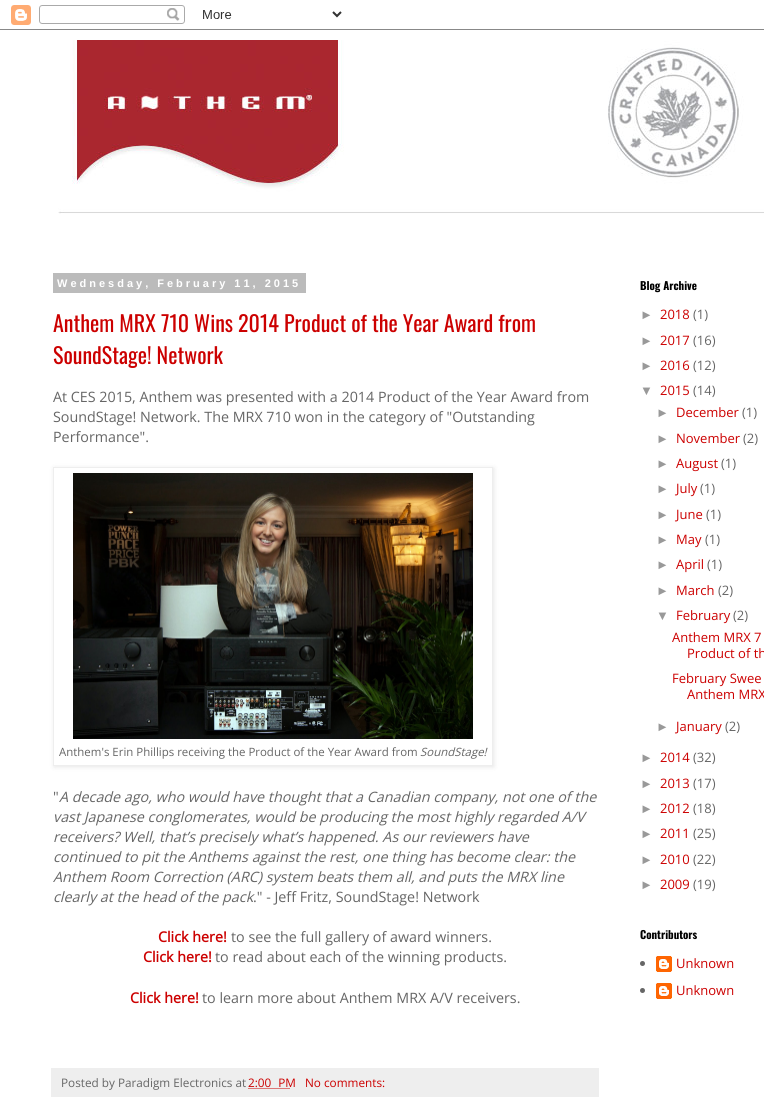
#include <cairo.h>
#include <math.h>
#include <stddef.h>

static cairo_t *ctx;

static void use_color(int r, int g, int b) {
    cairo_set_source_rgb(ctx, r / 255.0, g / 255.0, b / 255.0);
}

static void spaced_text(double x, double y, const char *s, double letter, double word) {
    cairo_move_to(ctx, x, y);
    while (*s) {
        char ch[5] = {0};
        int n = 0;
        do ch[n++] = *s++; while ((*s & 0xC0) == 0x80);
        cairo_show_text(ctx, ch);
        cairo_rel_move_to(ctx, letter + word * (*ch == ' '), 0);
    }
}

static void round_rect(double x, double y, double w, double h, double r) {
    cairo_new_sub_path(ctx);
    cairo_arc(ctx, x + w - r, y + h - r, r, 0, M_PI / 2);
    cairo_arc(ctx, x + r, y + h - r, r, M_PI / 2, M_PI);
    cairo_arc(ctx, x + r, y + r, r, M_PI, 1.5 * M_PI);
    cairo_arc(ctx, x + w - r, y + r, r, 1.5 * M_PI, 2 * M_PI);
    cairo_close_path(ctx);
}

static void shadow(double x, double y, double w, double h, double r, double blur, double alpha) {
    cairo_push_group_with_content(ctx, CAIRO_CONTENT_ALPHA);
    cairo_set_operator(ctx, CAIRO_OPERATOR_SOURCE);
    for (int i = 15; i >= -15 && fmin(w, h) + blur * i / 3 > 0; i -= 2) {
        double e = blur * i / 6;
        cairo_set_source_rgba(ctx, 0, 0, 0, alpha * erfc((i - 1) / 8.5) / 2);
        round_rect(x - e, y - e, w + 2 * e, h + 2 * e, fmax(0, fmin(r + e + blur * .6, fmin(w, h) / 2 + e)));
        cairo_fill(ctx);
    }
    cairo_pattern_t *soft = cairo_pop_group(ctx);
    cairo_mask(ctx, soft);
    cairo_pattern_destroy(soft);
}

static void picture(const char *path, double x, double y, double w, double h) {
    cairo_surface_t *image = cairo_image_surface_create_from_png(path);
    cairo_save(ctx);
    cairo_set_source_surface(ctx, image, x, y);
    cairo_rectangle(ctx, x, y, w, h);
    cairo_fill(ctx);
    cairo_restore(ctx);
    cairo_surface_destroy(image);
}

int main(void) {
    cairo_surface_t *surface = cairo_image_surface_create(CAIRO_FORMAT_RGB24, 764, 1101);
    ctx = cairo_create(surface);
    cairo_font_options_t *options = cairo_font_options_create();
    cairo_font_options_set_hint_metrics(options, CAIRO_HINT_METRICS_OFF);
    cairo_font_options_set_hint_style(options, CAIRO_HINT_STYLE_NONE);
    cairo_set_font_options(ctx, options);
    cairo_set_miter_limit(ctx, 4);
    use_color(255, 255, 255);
    cairo_paint(ctx);
    picture("img1.png", 0, 5, 764, 25);
    picture("img2.png", 58, 40, 706, 174);
    use_color(187, 187, 187);
    cairo_rectangle(ctx, 53, 273, 253, 20);
    cairo_fill(ctx);
    cairo_select_font_face(ctx, "Liberation Sans", CAIRO_FONT_SLANT_NORMAL, CAIRO_FONT_WEIGHT_BOLD);
    cairo_set_font_size(ctx, 11);
    use_color(255, 255, 255);
    spaced_text(57, 287, "Wednesday, February 11, 2015", 3, 0);
    cairo_select_font_face(ctx, "Oswald", CAIRO_FONT_SLANT_NORMAL, CAIRO_FONT_WEIGHT_NORMAL);
    cairo_set_font_size(ctx, 22);
    use_color(204, 0, 0);
    cairo_move_to(ctx, 53, 332);
    cairo_show_text(ctx, "Anthem MRX 710 Wins 2014 Product of the Year Award from");
    cairo_move_to(ctx, 53, 364);
    cairo_show_text(ctx, "SoundStage! Network");
    cairo_select_font_face(ctx, "Open Sans", CAIRO_FONT_SLANT_NORMAL, CAIRO_FONT_WEIGHT_NORMAL);
    cairo_set_font_size(ctx, 14.3);
    use_color(102, 102, 102);
    cairo_move_to(ctx, 53, 402);
    cairo_show_text(ctx, "At CES 2015, Anthem was presented with a 2014 Product of the Year Award from");
    cairo_move_to(ctx, 53, 422);
    cairo_show_text(ctx, "SoundStage! Network. The MRX 710 won in the category of \"Outstanding");
    cairo_move_to(ctx, 53, 442);
    cairo_show_text(ctx, "Performance\".");
    cairo_save(ctx);
    cairo_set_fill_rule(ctx, CAIRO_FILL_RULE_EVEN_ODD);
    cairo_new_path(ctx);
    cairo_move_to(ctx, 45, 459);
    cairo_line_to(ctx, 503, 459);
    cairo_line_to(ctx, 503, 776);
    cairo_line_to(ctx, 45, 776);
    cairo_close_path(ctx);
    cairo_move_to(ctx, 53, 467);
    cairo_line_to(ctx, 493, 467);
    cairo_line_to(ctx, 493, 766);
    cairo_line_to(ctx, 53, 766);
    cairo_close_path(ctx);
    cairo_clip(ctx);
    use_color(0, 0, 0);
    shadow(54, 468, 440, 299, 0, 2.5, 0.1);
    cairo_restore(ctx);
    cairo_rectangle(ctx, 53.5, 467.5, 439, 298);
    use_color(238, 238, 238);
    cairo_set_line_width(ctx, 1);
    cairo_stroke(ctx);
    picture("img3.png", 73, 473, 400, 266);
    cairo_set_font_size(ctx, 11.45);
    use_color(102, 102, 102);
    cairo_move_to(ctx, 59, 756);
    cairo_show_text(ctx, "Anthem's Erin Phillips receiving the Product of the Year Award from");
    cairo_select_font_face(ctx, "Open Sans", CAIRO_FONT_SLANT_ITALIC, CAIRO_FONT_WEIGHT_NORMAL);
    cairo_move_to(ctx, 420, 756);
    cairo_show_text(ctx, "SoundStage!");
    cairo_select_font_face(ctx, "Open Sans", CAIRO_FONT_SLANT_NORMAL, CAIRO_FONT_WEIGHT_NORMAL);
    cairo_set_font_size(ctx, 14.3);
    cairo_move_to(ctx, 53, 802);
    cairo_show_text(ctx, "\"");
    cairo_select_font_face(ctx, "Open Sans", CAIRO_FONT_SLANT_ITALIC, CAIRO_FONT_WEIGHT_NORMAL);
    cairo_move_to(ctx, 59, 802);
    cairo_show_text(ctx, "A decade ago, who would have thought that a Canadian company, not one of the");
    cairo_move_to(ctx, 53, 822);
    cairo_show_text(ctx, "vast Japanese conglomerates, would be producing the most highly regarded A/V");
    cairo_move_to(ctx, 53, 842);
    cairo_show_text(ctx, "receivers? Well, that’s precisely what’s happened. As our reviewers have");
    cairo_move_to(ctx, 53, 862);
    cairo_show_text(ctx, "continued to pit the Anthems against the rest, one thing has become clear: the");
    cairo_move_to(ctx, 53, 882);
    cairo_show_text(ctx, "Anthem Room Correction (ARC) system beats them all, and puts the MRX line");
    cairo_move_to(ctx, 53, 902);
    cairo_show_text(ctx, "clearly at the head of the pack");
    cairo_select_font_face(ctx, "Open Sans", CAIRO_FONT_SLANT_NORMAL, CAIRO_FONT_WEIGHT_NORMAL);
    cairo_move_to(ctx, 253, 902);
    cairo_show_text(ctx, ".\" - Jeff Fritz, SoundStage! Network");
    cairo_select_font_face(ctx, "Open Sans", CAIRO_FONT_SLANT_NORMAL, CAIRO_FONT_WEIGHT_BOLD);
    use_color(204, 0, 0);
    cairo_move_to(ctx, 158, 942);
    cairo_show_text(ctx, "Click here!");
    cairo_select_font_face(ctx, "Open Sans", CAIRO_FONT_SLANT_NORMAL, CAIRO_FONT_WEIGHT_NORMAL);
    use_color(102, 102, 102);
    cairo_move_to(ctx, 231, 942);
    cairo_show_text(ctx, "to see the full gallery of award winners.");
    cairo_select_font_face(ctx, "Open Sans", CAIRO_FONT_SLANT_NORMAL, CAIRO_FONT_WEIGHT_BOLD);
    use_color(204, 0, 0);
    cairo_move_to(ctx, 143, 962);
    cairo_show_text(ctx, "Click here!");
    cairo_select_font_face(ctx, "Open Sans", CAIRO_FONT_SLANT_NORMAL, CAIRO_FONT_WEIGHT_NORMAL);
    use_color(102, 102, 102);
    cairo_move_to(ctx, 215, 962);
    cairo_show_text(ctx, "to read about each of the winning products.");
    cairo_select_font_face(ctx, "Open Sans", CAIRO_FONT_SLANT_NORMAL, CAIRO_FONT_WEIGHT_BOLD);
    use_color(204, 0, 0);
    cairo_move_to(ctx, 130, 1003);
    cairo_show_text(ctx, "Click here!");
    cairo_select_font_face(ctx, "Open Sans", CAIRO_FONT_SLANT_NORMAL, CAIRO_FONT_WEIGHT_NORMAL);
    use_color(102, 102, 102);
    cairo_move_to(ctx, 202, 1003);
    cairo_show_text(ctx, "to learn more about Anthem MRX A/V receivers.");
    use_color(238, 238, 238);
    cairo_rectangle(ctx, 51, 1068, 548, 29);
    cairo_fill(ctx);
    cairo_set_font_size(ctx, 11.75);
    use_color(102, 102, 102);
    cairo_move_to(ctx, 61, 1087);
    cairo_show_text(ctx, "Posted by Paradigm Electronics at");
    use_color(204, 0, 0);
    cairo_move_to(ctx, 248, 1087);
    cairo_show_text(ctx, "2:00 PM");
    cairo_new_path(ctx);
    cairo_move_to(ctx, 248.5, 1088.5);
    cairo_line_to(ctx, 290.5, 1088.5);
    cairo_set_dash(ctx, (double[]){1, 1}, 2, 0);
    cairo_stroke(ctx);
    cairo_move_to(ctx, 305, 1087);
    cairo_show_text(ctx, "No comments:");
    cairo_select_font_face(ctx, "Oswald", CAIRO_FONT_SLANT_NORMAL, CAIRO_FONT_WEIGHT_BOLD);
    cairo_set_font_size(ctx, 11);
    use_color(0, 0, 0);
    cairo_move_to(ctx, 640, 290);
    cairo_show_text(ctx, "Blog Archive");
    cairo_select_font_face(ctx, "Liberation Sans", CAIRO_FONT_SLANT_NORMAL, CAIRO_FONT_WEIGHT_NORMAL);
    cairo_set_font_size(ctx, 13);
    use_color(153, 153, 153);
    cairo_move_to(ctx, 640, 319);
    cairo_show_text(ctx, "►");
    cairo_select_font_face(ctx, "Open Sans", CAIRO_FONT_SLANT_NORMAL, CAIRO_FONT_WEIGHT_NORMAL);
    use_color(204, 0, 0);
    cairo_move_to(ctx, 660, 319);
    cairo_show_text(ctx, "2018");
    use_color(102, 102, 102);
    cairo_move_to(ctx, 693, 319);
    cairo_show_text(ctx, "(1)");
    cairo_select_font_face(ctx, "Liberation Sans", CAIRO_FONT_SLANT_NORMAL, CAIRO_FONT_WEIGHT_NORMAL);
    use_color(153, 153, 153);
    cairo_move_to(ctx, 640, 345);
    cairo_show_text(ctx, "►");
    cairo_select_font_face(ctx, "Open Sans", CAIRO_FONT_SLANT_NORMAL, CAIRO_FONT_WEIGHT_NORMAL);
    use_color(204, 0, 0);
    cairo_move_to(ctx, 660, 345);
    cairo_show_text(ctx, "2017");
    use_color(102, 102, 102);
    cairo_move_to(ctx, 693, 345);
    cairo_show_text(ctx, "(16)");
    cairo_select_font_face(ctx, "Liberation Sans", CAIRO_FONT_SLANT_NORMAL, CAIRO_FONT_WEIGHT_NORMAL);
    use_color(153, 153, 153);
    cairo_move_to(ctx, 640, 370);
    cairo_show_text(ctx, "►");
    cairo_select_font_face(ctx, "Open Sans", CAIRO_FONT_SLANT_NORMAL, CAIRO_FONT_WEIGHT_NORMAL);
    use_color(204, 0, 0);
    cairo_move_to(ctx, 660, 370);
    cairo_show_text(ctx, "2016");
    use_color(102, 102, 102);
    cairo_move_to(ctx, 693, 370);
    cairo_show_text(ctx, "(12)");
    cairo_select_font_face(ctx, "Liberation Sans", CAIRO_FONT_SLANT_NORMAL, CAIRO_FONT_WEIGHT_NORMAL);
    use_color(153, 153, 153);
    cairo_move_to(ctx, 640, 395);
    cairo_show_text(ctx, "▼");
    cairo_select_font_face(ctx, "Open Sans", CAIRO_FONT_SLANT_NORMAL, CAIRO_FONT_WEIGHT_NORMAL);
    use_color(204, 0, 0);
    cairo_move_to(ctx, 660, 395);
    cairo_show_text(ctx, "2015");
    use_color(102, 102, 102);
    cairo_move_to(ctx, 693, 395);
    cairo_show_text(ctx, "(14)");
    cairo_select_font_face(ctx, "Liberation Sans", CAIRO_FONT_SLANT_NORMAL, CAIRO_FONT_WEIGHT_NORMAL);
    use_color(153, 153, 153);
    cairo_move_to(ctx, 656, 417);
    cairo_show_text(ctx, "►");
    cairo_select_font_face(ctx, "Open Sans", CAIRO_FONT_SLANT_NORMAL, CAIRO_FONT_WEIGHT_NORMAL);
    use_color(204, 0, 0);
    cairo_move_to(ctx, 676, 417);
    cairo_show_text(ctx, "December");
    use_color(102, 102, 102);
    cairo_move_to(ctx, 742, 417);
    cairo_show_text(ctx, "(1)");
    cairo_select_font_face(ctx, "Liberation Sans", CAIRO_FONT_SLANT_NORMAL, CAIRO_FONT_WEIGHT_NORMAL);
    use_color(153, 153, 153);
    cairo_move_to(ctx, 656, 443);
    cairo_show_text(ctx, "►");
    cairo_select_font_face(ctx, "Open Sans", CAIRO_FONT_SLANT_NORMAL, CAIRO_FONT_WEIGHT_NORMAL);
    use_color(204, 0, 0);
    cairo_move_to(ctx, 676, 443);
    cairo_show_text(ctx, "November");
    use_color(102, 102, 102);
    cairo_move_to(ctx, 743, 443);
    cairo_show_text(ctx, "(2)");
    cairo_select_font_face(ctx, "Liberation Sans", CAIRO_FONT_SLANT_NORMAL, CAIRO_FONT_WEIGHT_NORMAL);
    use_color(153, 153, 153);
    cairo_move_to(ctx, 656, 468);
    cairo_show_text(ctx, "►");
    cairo_select_font_face(ctx, "Open Sans", CAIRO_FONT_SLANT_NORMAL, CAIRO_FONT_WEIGHT_NORMAL);
    use_color(204, 0, 0);
    cairo_move_to(ctx, 676, 468);
    cairo_show_text(ctx, "August");
    use_color(102, 102, 102);
    cairo_move_to(ctx, 721, 468);
    cairo_show_text(ctx, "(1)");
    cairo_select_font_face(ctx, "Liberation Sans", CAIRO_FONT_SLANT_NORMAL, CAIRO_FONT_WEIGHT_NORMAL);
    use_color(153, 153, 153);
    cairo_move_to(ctx, 656, 493);
    cairo_show_text(ctx, "►");
    cairo_select_font_face(ctx, "Open Sans", CAIRO_FONT_SLANT_NORMAL, CAIRO_FONT_WEIGHT_NORMAL);
    use_color(204, 0, 0);
    cairo_move_to(ctx, 676, 493);
    cairo_show_text(ctx, "July");
    use_color(102, 102, 102);
    cairo_move_to(ctx, 700, 493);
    cairo_show_text(ctx, "(1)");
    cairo_select_font_face(ctx, "Liberation Sans", CAIRO_FONT_SLANT_NORMAL, CAIRO_FONT_WEIGHT_NORMAL);
    use_color(153, 153, 153);
    cairo_move_to(ctx, 656, 519);
    cairo_show_text(ctx, "►");
    cairo_select_font_face(ctx, "Open Sans", CAIRO_FONT_SLANT_NORMAL, CAIRO_FONT_WEIGHT_NORMAL);
    use_color(204, 0, 0);
    cairo_move_to(ctx, 676, 519);
    cairo_show_text(ctx, "June");
    use_color(102, 102, 102);
    cairo_move_to(ctx, 706, 519);
    cairo_show_text(ctx, "(1)");
    cairo_select_font_face(ctx, "Liberation Sans", CAIRO_FONT_SLANT_NORMAL, CAIRO_FONT_WEIGHT_NORMAL);
    use_color(153, 153, 153);
    cairo_move_to(ctx, 656, 544);
    cairo_show_text(ctx, "►");
    cairo_select_font_face(ctx, "Open Sans", CAIRO_FONT_SLANT_NORMAL, CAIRO_FONT_WEIGHT_NORMAL);
    use_color(204, 0, 0);
    cairo_move_to(ctx, 676, 544);
    cairo_show_text(ctx, "May");
    use_color(102, 102, 102);
    cairo_move_to(ctx, 705, 544);
    cairo_show_text(ctx, "(1)");
    cairo_select_font_face(ctx, "Liberation Sans", CAIRO_FONT_SLANT_NORMAL, CAIRO_FONT_WEIGHT_NORMAL);
    use_color(153, 153, 153);
    cairo_move_to(ctx, 656, 569);
    cairo_show_text(ctx, "►");
    cairo_select_font_face(ctx, "Open Sans", CAIRO_FONT_SLANT_NORMAL, CAIRO_FONT_WEIGHT_NORMAL);
    use_color(204, 0, 0);
    cairo_move_to(ctx, 676, 569);
    cairo_show_text(ctx, "April");
    use_color(102, 102, 102);
    cairo_move_to(ctx, 707, 569);
    cairo_show_text(ctx, "(1)");
    cairo_select_font_face(ctx, "Liberation Sans", CAIRO_FONT_SLANT_NORMAL, CAIRO_FONT_WEIGHT_NORMAL);
    use_color(153, 153, 153);
    cairo_move_to(ctx, 656, 595);
    cairo_show_text(ctx, "►");
    cairo_select_font_face(ctx, "Open Sans", CAIRO_FONT_SLANT_NORMAL, CAIRO_FONT_WEIGHT_NORMAL);
    use_color(204, 0, 0);
    cairo_move_to(ctx, 676, 595);
    cairo_show_text(ctx, "March");
    use_color(102, 102, 102);
    cairo_move_to(ctx, 718, 595);
    cairo_show_text(ctx, "(2)");
    cairo_select_font_face(ctx, "Liberation Sans", CAIRO_FONT_SLANT_NORMAL, CAIRO_FONT_WEIGHT_NORMAL);
    use_color(153, 153, 153);
    cairo_move_to(ctx, 656, 620);
    cairo_show_text(ctx, "▼");
    cairo_select_font_face(ctx, "Open Sans", CAIRO_FONT_SLANT_NORMAL, CAIRO_FONT_WEIGHT_NORMAL);
    use_color(204, 0, 0);
    cairo_move_to(ctx, 676, 620);
    cairo_show_text(ctx, "February");
    use_color(102, 102, 102);
    cairo_move_to(ctx, 733, 620);
    cairo_show_text(ctx, "(2)");
    use_color(204, 0, 0);
    cairo_move_to(ctx, 672, 642);
    cairo_show_text(ctx, "Anthem MRX 7");
    cairo_move_to(ctx, 687, 658);
    cairo_show_text(ctx, "Product of th");
    cairo_move_to(ctx, 672, 683);
    cairo_show_text(ctx, "February Swee");
    cairo_move_to(ctx, 687, 699);
    cairo_show_text(ctx, "Anthem MRX");
    cairo_select_font_face(ctx, "Liberation Sans", CAIRO_FONT_SLANT_NORMAL, CAIRO_FONT_WEIGHT_NORMAL);
    use_color(153, 153, 153);
    cairo_move_to(ctx, 656, 731);
    cairo_show_text(ctx, "►");
    cairo_select_font_face(ctx, "Open Sans", CAIRO_FONT_SLANT_NORMAL, CAIRO_FONT_WEIGHT_NORMAL);
    use_color(204, 0, 0);
    cairo_move_to(ctx, 676, 731);
    cairo_show_text(ctx, "January");
    use_color(102, 102, 102);
    cairo_move_to(ctx, 725, 731);
    cairo_show_text(ctx, "(2)");
    cairo_select_font_face(ctx, "Liberation Sans", CAIRO_FONT_SLANT_NORMAL, CAIRO_FONT_WEIGHT_NORMAL);
    use_color(153, 153, 153);
    cairo_move_to(ctx, 640, 762);
    cairo_show_text(ctx, "►");
    cairo_select_font_face(ctx, "Open Sans", CAIRO_FONT_SLANT_NORMAL, CAIRO_FONT_WEIGHT_NORMAL);
    use_color(204, 0, 0);
    cairo_move_to(ctx, 660, 762);
    cairo_show_text(ctx, "2014");
    use_color(102, 102, 102);
    cairo_move_to(ctx, 693, 762);
    cairo_show_text(ctx, "(32)");
    cairo_select_font_face(ctx, "Liberation Sans", CAIRO_FONT_SLANT_NORMAL, CAIRO_FONT_WEIGHT_NORMAL);
    use_color(153, 153, 153);
    cairo_move_to(ctx, 640, 788);
    cairo_show_text(ctx, "►");
    cairo_select_font_face(ctx, "Open Sans", CAIRO_FONT_SLANT_NORMAL, CAIRO_FONT_WEIGHT_NORMAL);
    use_color(204, 0, 0);
    cairo_move_to(ctx, 660, 788);
    cairo_show_text(ctx, "2013");
    use_color(102, 102, 102);
    cairo_move_to(ctx, 693, 788);
    cairo_show_text(ctx, "(17)");
    cairo_select_font_face(ctx, "Liberation Sans", CAIRO_FONT_SLANT_NORMAL, CAIRO_FONT_WEIGHT_NORMAL);
    use_color(153, 153, 153);
    cairo_move_to(ctx, 640, 813);
    cairo_show_text(ctx, "►");
    cairo_select_font_face(ctx, "Open Sans", CAIRO_FONT_SLANT_NORMAL, CAIRO_FONT_WEIGHT_NORMAL);
    use_color(204, 0, 0);
    cairo_move_to(ctx, 660, 813);
    cairo_show_text(ctx, "2012");
    use_color(102, 102, 102);
    cairo_move_to(ctx, 693, 813);
    cairo_show_text(ctx, "(18)");
    cairo_select_font_face(ctx, "Liberation Sans", CAIRO_FONT_SLANT_NORMAL, CAIRO_FONT_WEIGHT_NORMAL);
    use_color(153, 153, 153);
    cairo_move_to(ctx, 640, 838);
    cairo_show_text(ctx, "►");
    cairo_select_font_face(ctx, "Open Sans", CAIRO_FONT_SLANT_NORMAL, CAIRO_FONT_WEIGHT_NORMAL);
    use_color(204, 0, 0);
    cairo_move_to(ctx, 660, 838);
    cairo_show_text(ctx, "2011");
    use_color(102, 102, 102);
    cairo_move_to(ctx, 693, 838);
    cairo_show_text(ctx, "(25)");
    cairo_select_font_face(ctx, "Liberation Sans", CAIRO_FONT_SLANT_NORMAL, CAIRO_FONT_WEIGHT_NORMAL);
    use_color(153, 153, 153);
    cairo_move_to(ctx, 640, 864);
    cairo_show_text(ctx, "►");
    cairo_select_font_face(ctx, "Open Sans", CAIRO_FONT_SLANT_NORMAL, CAIRO_FONT_WEIGHT_NORMAL);
    use_color(204, 0, 0);
    cairo_move_to(ctx, 660, 864);
    cairo_show_text(ctx, "2010");
    use_color(102, 102, 102);
    cairo_move_to(ctx, 693, 864);
    cairo_show_text(ctx, "(22)");
    cairo_select_font_face(ctx, "Liberation Sans", CAIRO_FONT_SLANT_NORMAL, CAIRO_FONT_WEIGHT_NORMAL);
    use_color(153, 153, 153);
    cairo_move_to(ctx, 640, 889);
    cairo_show_text(ctx, "►");
    cairo_select_font_face(ctx, "Open Sans", CAIRO_FONT_SLANT_NORMAL, CAIRO_FONT_WEIGHT_NORMAL);
    use_color(204, 0, 0);
    cairo_move_to(ctx, 660, 889);
    cairo_show_text(ctx, "2009");
    use_color(102, 102, 102);
    cairo_move_to(ctx, 693, 889);
    cairo_show_text(ctx, "(19)");
    cairo_select_font_face(ctx, "Oswald", CAIRO_FONT_SLANT_NORMAL, CAIRO_FONT_WEIGHT_BOLD);
    cairo_set_font_size(ctx, 11);
    use_color(0, 0, 0);
    cairo_move_to(ctx, 640, 939);
    cairo_show_text(ctx, "Contributors");
    use_color(102, 102, 102);
    cairo_new_path(ctx);
    cairo_arc(ctx, 642.5, 963.5, 2.5, 0, 2 * M_PI);
    cairo_fill(ctx);
    picture("img4.png", 656, 956, 16, 16);
    cairo_select_font_face(ctx, "Open Sans", CAIRO_FONT_SLANT_NORMAL, CAIRO_FONT_WEIGHT_NORMAL);
    cairo_set_font_size(ctx, 13);
    use_color(204, 0, 0);
    cairo_move_to(ctx, 676, 968);
    cairo_show_text(ctx, "Unknown");
    use_color(102, 102, 102);
    cairo_new_path(ctx);
    cairo_arc(ctx, 642.5, 990.5, 2.5, 0, 2 * M_PI);
    cairo_fill(ctx);
    picture("img4.png", 656, 983, 16, 16);
    use_color(204, 0, 0);
    cairo_move_to(ctx, 676, 995);
    cairo_show_text(ctx, "Unknown");
    cairo_surface_write_to_png(surface, "result.png");
    cairo_font_options_destroy(options);
    cairo_destroy(ctx);
    cairo_surface_destroy(surface);
    return 0;
}
